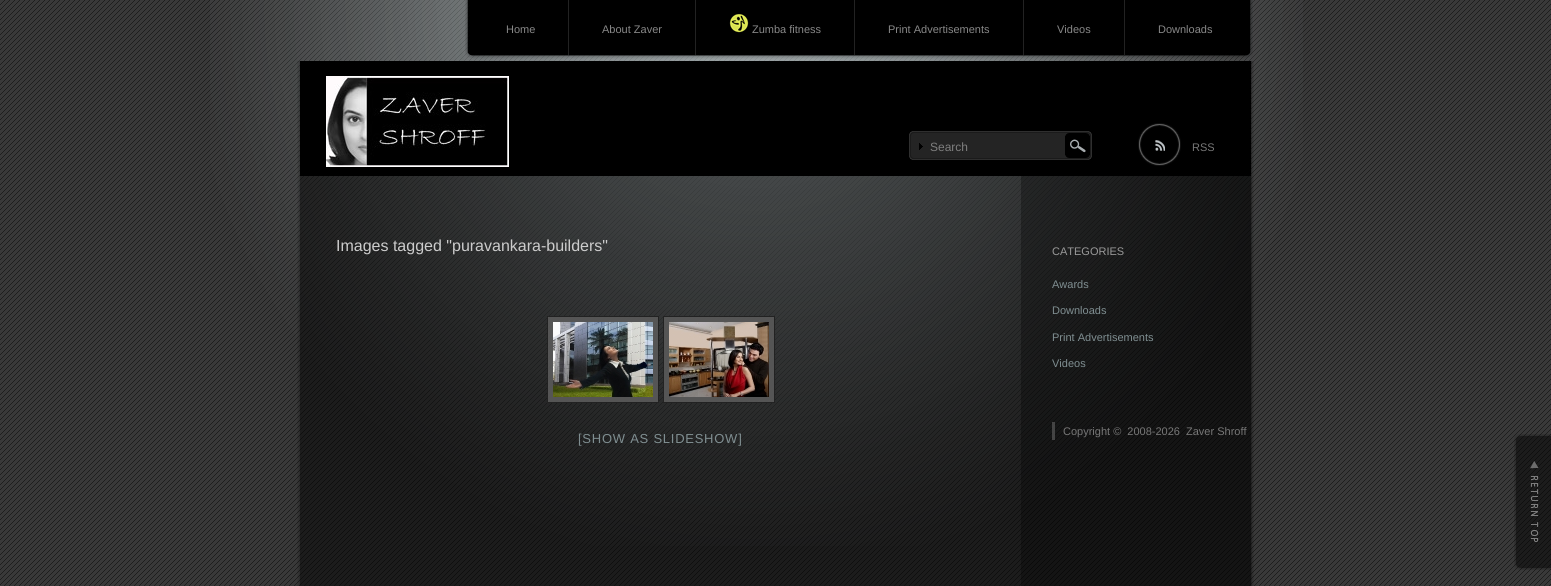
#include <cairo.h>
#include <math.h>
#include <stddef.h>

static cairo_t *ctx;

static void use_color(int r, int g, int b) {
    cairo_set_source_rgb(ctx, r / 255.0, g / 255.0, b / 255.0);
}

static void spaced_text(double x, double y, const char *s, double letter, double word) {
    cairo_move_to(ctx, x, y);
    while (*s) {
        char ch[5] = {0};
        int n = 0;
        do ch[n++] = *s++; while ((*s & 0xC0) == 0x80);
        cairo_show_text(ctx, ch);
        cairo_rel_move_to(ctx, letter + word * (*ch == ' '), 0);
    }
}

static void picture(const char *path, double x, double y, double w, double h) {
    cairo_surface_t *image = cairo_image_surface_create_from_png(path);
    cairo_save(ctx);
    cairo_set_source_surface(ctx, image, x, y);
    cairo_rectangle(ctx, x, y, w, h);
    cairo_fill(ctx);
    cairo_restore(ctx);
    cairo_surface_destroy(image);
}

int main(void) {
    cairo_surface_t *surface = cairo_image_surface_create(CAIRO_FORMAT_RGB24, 1551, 586);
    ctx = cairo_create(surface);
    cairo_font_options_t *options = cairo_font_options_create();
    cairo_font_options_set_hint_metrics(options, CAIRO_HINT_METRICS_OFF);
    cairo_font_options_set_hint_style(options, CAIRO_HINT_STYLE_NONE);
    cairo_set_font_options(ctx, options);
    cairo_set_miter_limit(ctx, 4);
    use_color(255, 255, 255);
    cairo_paint(ctx);
    picture("img1.png", 0, 0, 1551, 586);
    picture("img2.png", 210, 0, 1093, 546);
    picture("img3.png", 465, 0, 8, 58);
    picture("img4.png", 473, 0, 772, 59);
    cairo_select_font_face(ctx, "Liberation Sans", CAIRO_FONT_SLANT_NORMAL, CAIRO_FONT_WEIGHT_NORMAL);
    cairo_set_font_size(ctx, 11);
    use_color(136, 136, 136);
    cairo_move_to(ctx, 506, 33);
    cairo_show_text(ctx, "Home");
    use_color(34, 34, 34);
    cairo_rectangle(ctx, 568, 0, 1, 55);
    cairo_fill(ctx);
    use_color(136, 136, 136);
    cairo_move_to(ctx, 602, 33);
    cairo_show_text(ctx, "About Zaver");
    use_color(34, 34, 34);
    cairo_rectangle(ctx, 695, 0, 1, 55);
    cairo_fill(ctx);
    picture("img5.png", 729, 14, 20, 19);
    use_color(136, 136, 136);
    cairo_move_to(ctx, 752, 33);
    cairo_show_text(ctx, "Zumba fitness");
    use_color(34, 34, 34);
    cairo_rectangle(ctx, 854, 0, 1, 55);
    cairo_fill(ctx);
    use_color(136, 136, 136);
    cairo_move_to(ctx, 888, 33);
    cairo_show_text(ctx, "Print Advertisements");
    use_color(34, 34, 34);
    cairo_rectangle(ctx, 1023, 0, 1, 55);
    cairo_fill(ctx);
    use_color(136, 136, 136);
    cairo_move_to(ctx, 1057, 33);
    cairo_show_text(ctx, "Videos");
    use_color(34, 34, 34);
    cairo_rectangle(ctx, 1124, 0, 1, 55);
    cairo_fill(ctx);
    use_color(136, 136, 136);
    cairo_move_to(ctx, 1158, 33);
    cairo_show_text(ctx, "Downloads");
    picture("img6.png", 1245, 0, 8, 58);
    picture("img7.png", 297, 61, 957, 115);
    picture("img8.png", 326, 76, 183, 91);
    picture("img9.png", 909, 131, 156, 29);
    cairo_set_font_size(ctx, 12);
    use_color(126, 126, 126);
    cairo_move_to(ctx, 930, 151);
    cairo_show_text(ctx, "Search");
    picture("img10.png", 1065, 131, 27, 29);
    picture("img11.png", 1138, 123, 43, 43);
    cairo_set_font_size(ctx, 11);
    use_color(119, 119, 119);
    cairo_move_to(ctx, 1192, 151);
    cairo_show_text(ctx, "RSS");
    picture("img12.png", 297, 176, 957, 410);
    cairo_set_font_size(ctx, 16);
    use_color(204, 204, 204);
    cairo_move_to(ctx, 336, 251);
    cairo_show_text(ctx, "Images tagged \"puravankara-builders\"");
    use_color(85, 85, 85);
    cairo_rectangle(ctx, 547.5, 316.5, 111, 86);
    cairo_fill_preserve(ctx);
    use_color(34, 34, 34);
    cairo_set_line_width(ctx, 1);
    cairo_stroke(ctx);
    picture("img13.png", 553, 322, 100, 75);
    use_color(85, 85, 85);
    cairo_rectangle(ctx, 663.5, 316.5, 111, 86);
    cairo_fill_preserve(ctx);
    use_color(34, 34, 34);
    cairo_stroke(ctx);
    picture("img14.png", 669, 322, 100, 75);
    cairo_set_font_size(ctx, 13);
    use_color(127, 142, 145);
    spaced_text(578, 443, "[SHOW AS SLIDESHOW]", 0.75, 0);
    cairo_set_font_size(ctx, 11);
    use_color(153, 153, 153);
    cairo_move_to(ctx, 1052, 255);
    cairo_show_text(ctx, "CATEGORIES");
    use_color(127, 142, 145);
    cairo_move_to(ctx, 1052, 288);
    cairo_show_text(ctx, "Awards");
    cairo_move_to(ctx, 1052, 314);
    cairo_show_text(ctx, "Downloads");
    cairo_move_to(ctx, 1052, 341);
    cairo_show_text(ctx, "Print Advertisements");
    cairo_move_to(ctx, 1052, 367);
    cairo_show_text(ctx, "Videos");
    use_color(68, 68, 68);
    cairo_rectangle(ctx, 1052, 422, 3, 18);
    cairo_fill(ctx);
    use_color(119, 119, 119);
    cairo_move_to(ctx, 1063, 435);
    cairo_show_text(ctx, "Copyright ©  2008-2026");
    cairo_move_to(ctx, 1186, 435);
    cairo_show_text(ctx, "Zaver Shroff");
    picture("img15.png", 1514, 434, 37, 136);
    cairo_surface_write_to_png(surface, "result.png");
    cairo_font_options_destroy(options);
    cairo_destroy(ctx);
    cairo_surface_destroy(surface);
    return 0;
}
